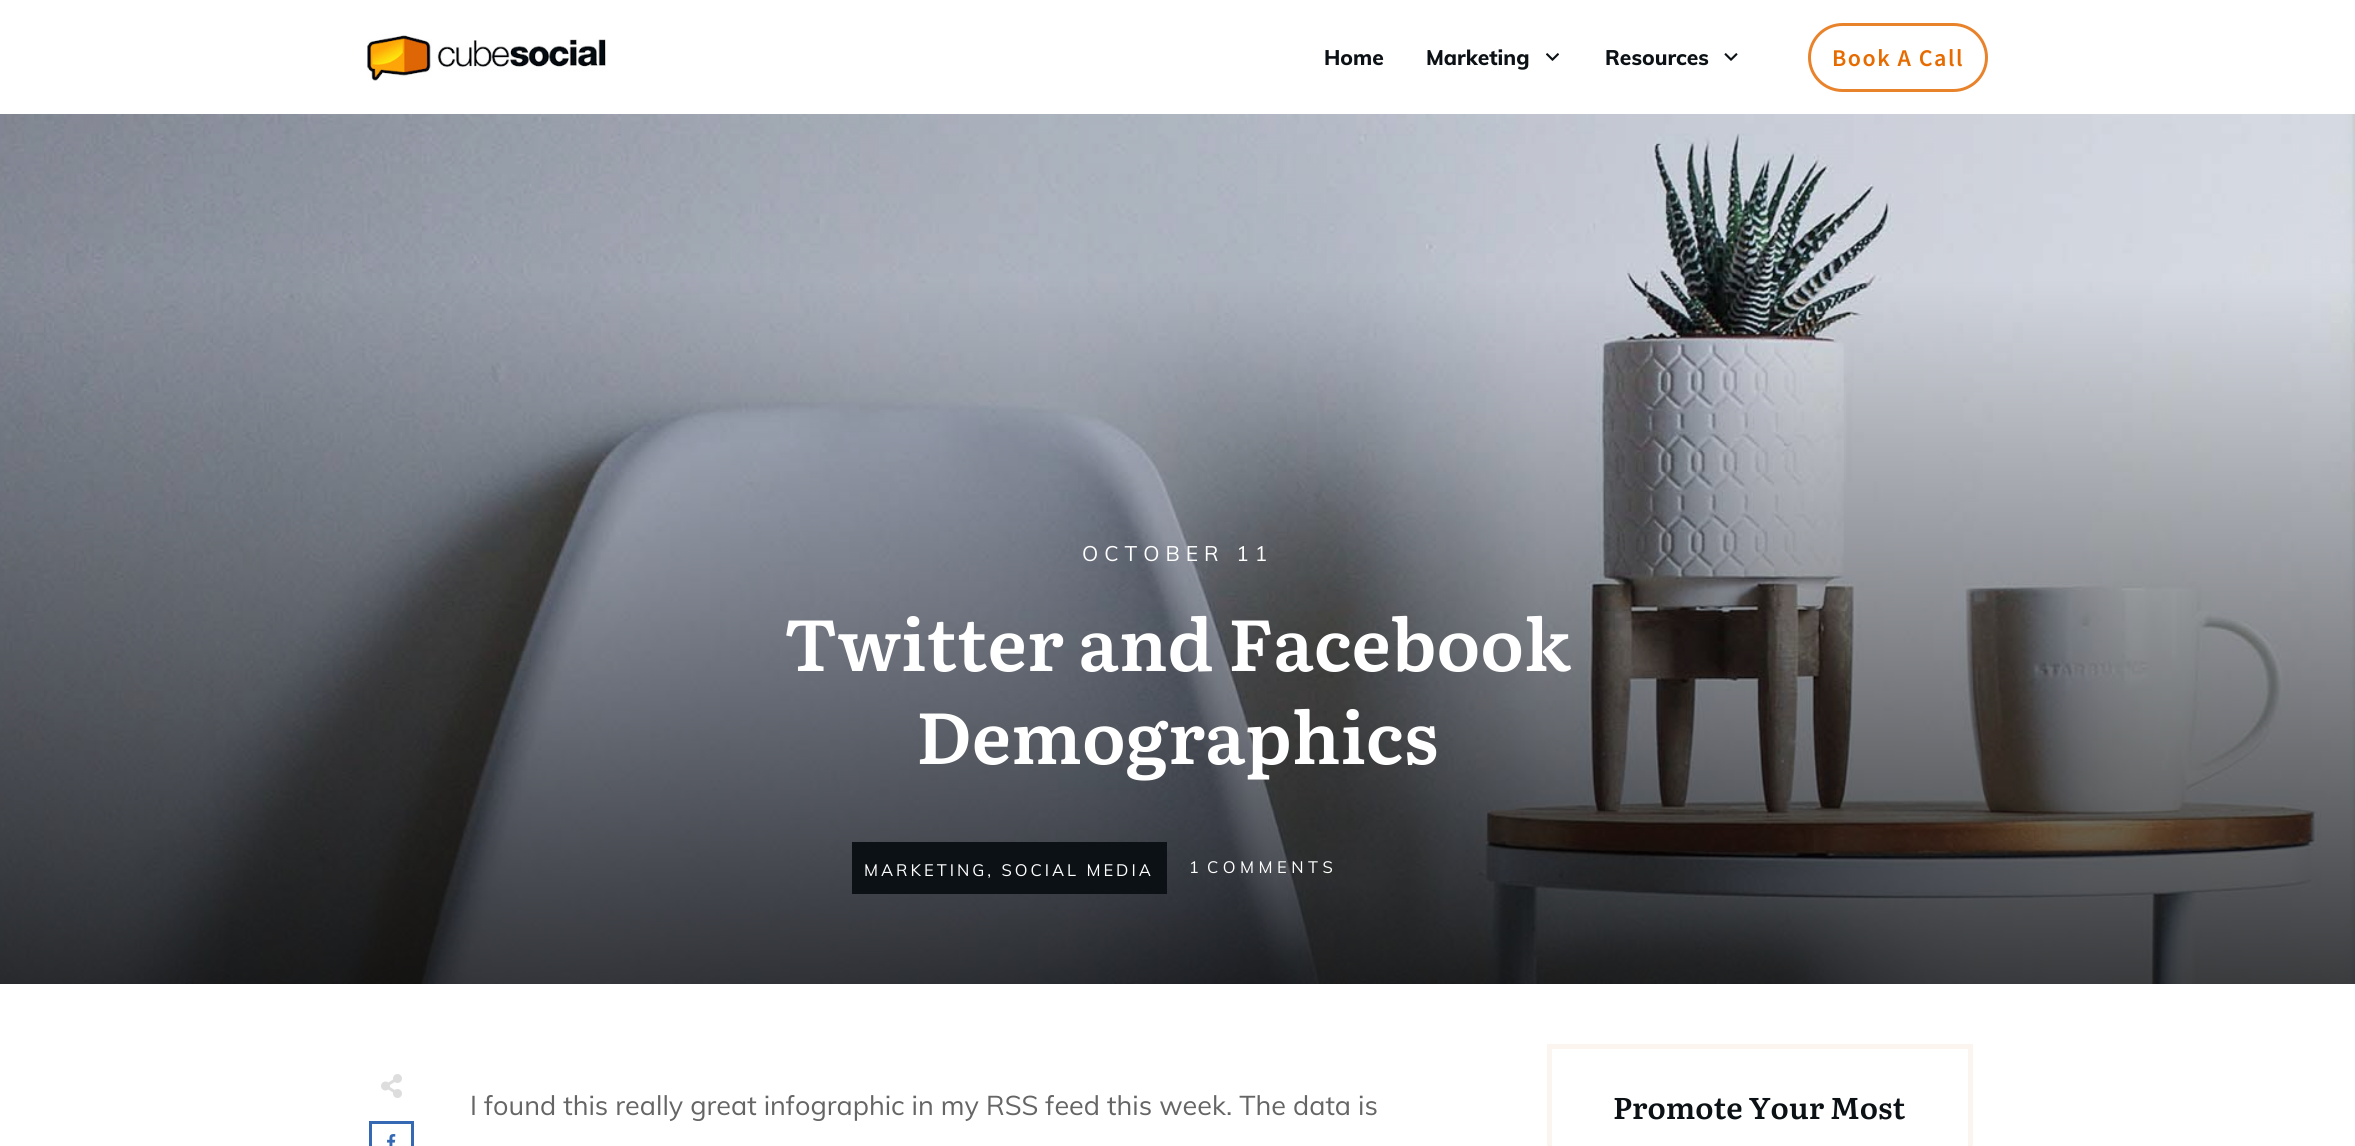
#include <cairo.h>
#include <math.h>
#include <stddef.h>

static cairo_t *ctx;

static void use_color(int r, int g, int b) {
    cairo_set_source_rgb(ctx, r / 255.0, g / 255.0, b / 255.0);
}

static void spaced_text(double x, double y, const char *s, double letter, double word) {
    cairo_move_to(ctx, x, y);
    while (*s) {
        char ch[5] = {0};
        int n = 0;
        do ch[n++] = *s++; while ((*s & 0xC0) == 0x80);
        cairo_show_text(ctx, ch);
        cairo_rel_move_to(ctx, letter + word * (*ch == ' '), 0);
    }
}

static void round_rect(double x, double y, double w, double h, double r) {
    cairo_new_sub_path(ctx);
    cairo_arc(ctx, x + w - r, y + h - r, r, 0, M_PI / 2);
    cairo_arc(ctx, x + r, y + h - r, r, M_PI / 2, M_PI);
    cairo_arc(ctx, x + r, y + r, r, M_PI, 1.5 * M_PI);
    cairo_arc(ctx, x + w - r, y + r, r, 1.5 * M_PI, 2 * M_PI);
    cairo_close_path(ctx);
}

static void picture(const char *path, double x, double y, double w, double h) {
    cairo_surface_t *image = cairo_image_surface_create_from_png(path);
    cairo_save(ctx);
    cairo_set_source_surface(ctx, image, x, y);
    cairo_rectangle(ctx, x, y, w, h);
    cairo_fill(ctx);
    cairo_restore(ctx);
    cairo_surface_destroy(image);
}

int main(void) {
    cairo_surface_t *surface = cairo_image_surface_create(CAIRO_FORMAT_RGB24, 2355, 1146);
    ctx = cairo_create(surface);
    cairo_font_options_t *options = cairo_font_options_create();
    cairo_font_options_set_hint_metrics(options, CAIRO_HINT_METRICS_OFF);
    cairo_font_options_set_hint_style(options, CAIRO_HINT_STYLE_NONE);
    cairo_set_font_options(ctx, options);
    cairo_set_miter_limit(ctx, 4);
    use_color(255, 255, 255);
    cairo_paint(ctx);
    picture("img1.png", 367, 34, 239, 47);
    cairo_select_font_face(ctx, "Muli ExtraBold", CAIRO_FONT_SLANT_NORMAL, CAIRO_FONT_WEIGHT_NORMAL);
    cairo_set_font_size(ctx, 21);
    use_color(12, 17, 21);
    cairo_move_to(ctx, 1324, 65);
    cairo_show_text(ctx, "Home");
    cairo_move_to(ctx, 1426, 65);
    cairo_show_text(ctx, "Marketing");
    picture("img2.png", 1546, 53, 13, 8);
    cairo_move_to(ctx, 1605, 65);
    cairo_show_text(ctx, "Resources");
    picture("img3.png", 1724, 53, 14, 8);
    round_rect(1809.5, 24.5, 177, 66, 33);
    use_color(232, 131, 44);
    cairo_set_line_width(ctx, 3);
    cairo_stroke(ctx);
    cairo_select_font_face(ctx, "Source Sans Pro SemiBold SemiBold", CAIRO_FONT_SLANT_NORMAL, CAIRO_FONT_WEIGHT_NORMAL);
    cairo_set_font_size(ctx, 24);
    use_color(230, 107, 0);
    spaced_text(1832, 66, "Book A Call", 1.5, 0);
    picture("img4.png", 0, 114, 2355, 870);
    cairo_select_font_face(ctx, "Muli", CAIRO_FONT_SLANT_NORMAL, CAIRO_FONT_WEIGHT_NORMAL);
    cairo_set_font_size(ctx, 21);
    use_color(255, 255, 255);
    spaced_text(1082, 561, "OCTOBER 11", 6, 0);
    cairo_select_font_face(ctx, "Literata SemiBold", CAIRO_FONT_SLANT_NORMAL, CAIRO_FONT_WEIGHT_NORMAL);
    cairo_set_font_size(ctx, 72);
    cairo_move_to(ctx, 784, 671);
    cairo_show_text(ctx, "Twitter and Facebook");
    cairo_move_to(ctx, 916, 764);
    cairo_show_text(ctx, "Demographics");
    use_color(12, 17, 21);
    cairo_rectangle(ctx, 852, 842, 315, 52);
    cairo_fill(ctx);
    cairo_select_font_face(ctx, "Muli", CAIRO_FONT_SLANT_NORMAL, CAIRO_FONT_WEIGHT_NORMAL);
    cairo_set_font_size(ctx, 16.5);
    use_color(255, 255, 255);
    spaced_text(864, 876, "MARKETING, SOCIAL MEDIA", 3, 0);
    cairo_move_to(ctx, 1189, 873);
    cairo_show_text(ctx, "1");
    spaced_text(1207, 873, "COMMENTS", 4.5, 0);
    picture("img5.png", 381, 1074, 21, 24);
    cairo_rectangle(ctx, 370.5, 1122.5, 42, 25);
    use_color(53, 105, 180);
    cairo_stroke(ctx);
    picture("img6.png", 387, 1134, 9, 12);
    cairo_set_font_size(ctx, 27);
    use_color(101, 101, 101);
    cairo_move_to(ctx, 470, 1115);
    cairo_show_text(ctx, "I found this really great infographic in my RSS feed this week. The data is");
    cairo_rectangle(ctx, 1549.5, 1046.5, 421, 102);
    use_color(251, 244, 239);
    cairo_set_line_width(ctx, 5);
    cairo_stroke(ctx);
    cairo_select_font_face(ctx, "Literata SemiBold", CAIRO_FONT_SLANT_NORMAL, CAIRO_FONT_WEIGHT_NORMAL);
    cairo_set_font_size(ctx, 30);
    use_color(12, 17, 21);
    cairo_move_to(ctx, 1613, 1119);
    cairo_show_text(ctx, "Promote Your Most");
    cairo_surface_write_to_png(surface, "result.png");
    cairo_font_options_destroy(options);
    cairo_destroy(ctx);
    cairo_surface_destroy(surface);
    return 0;
}
